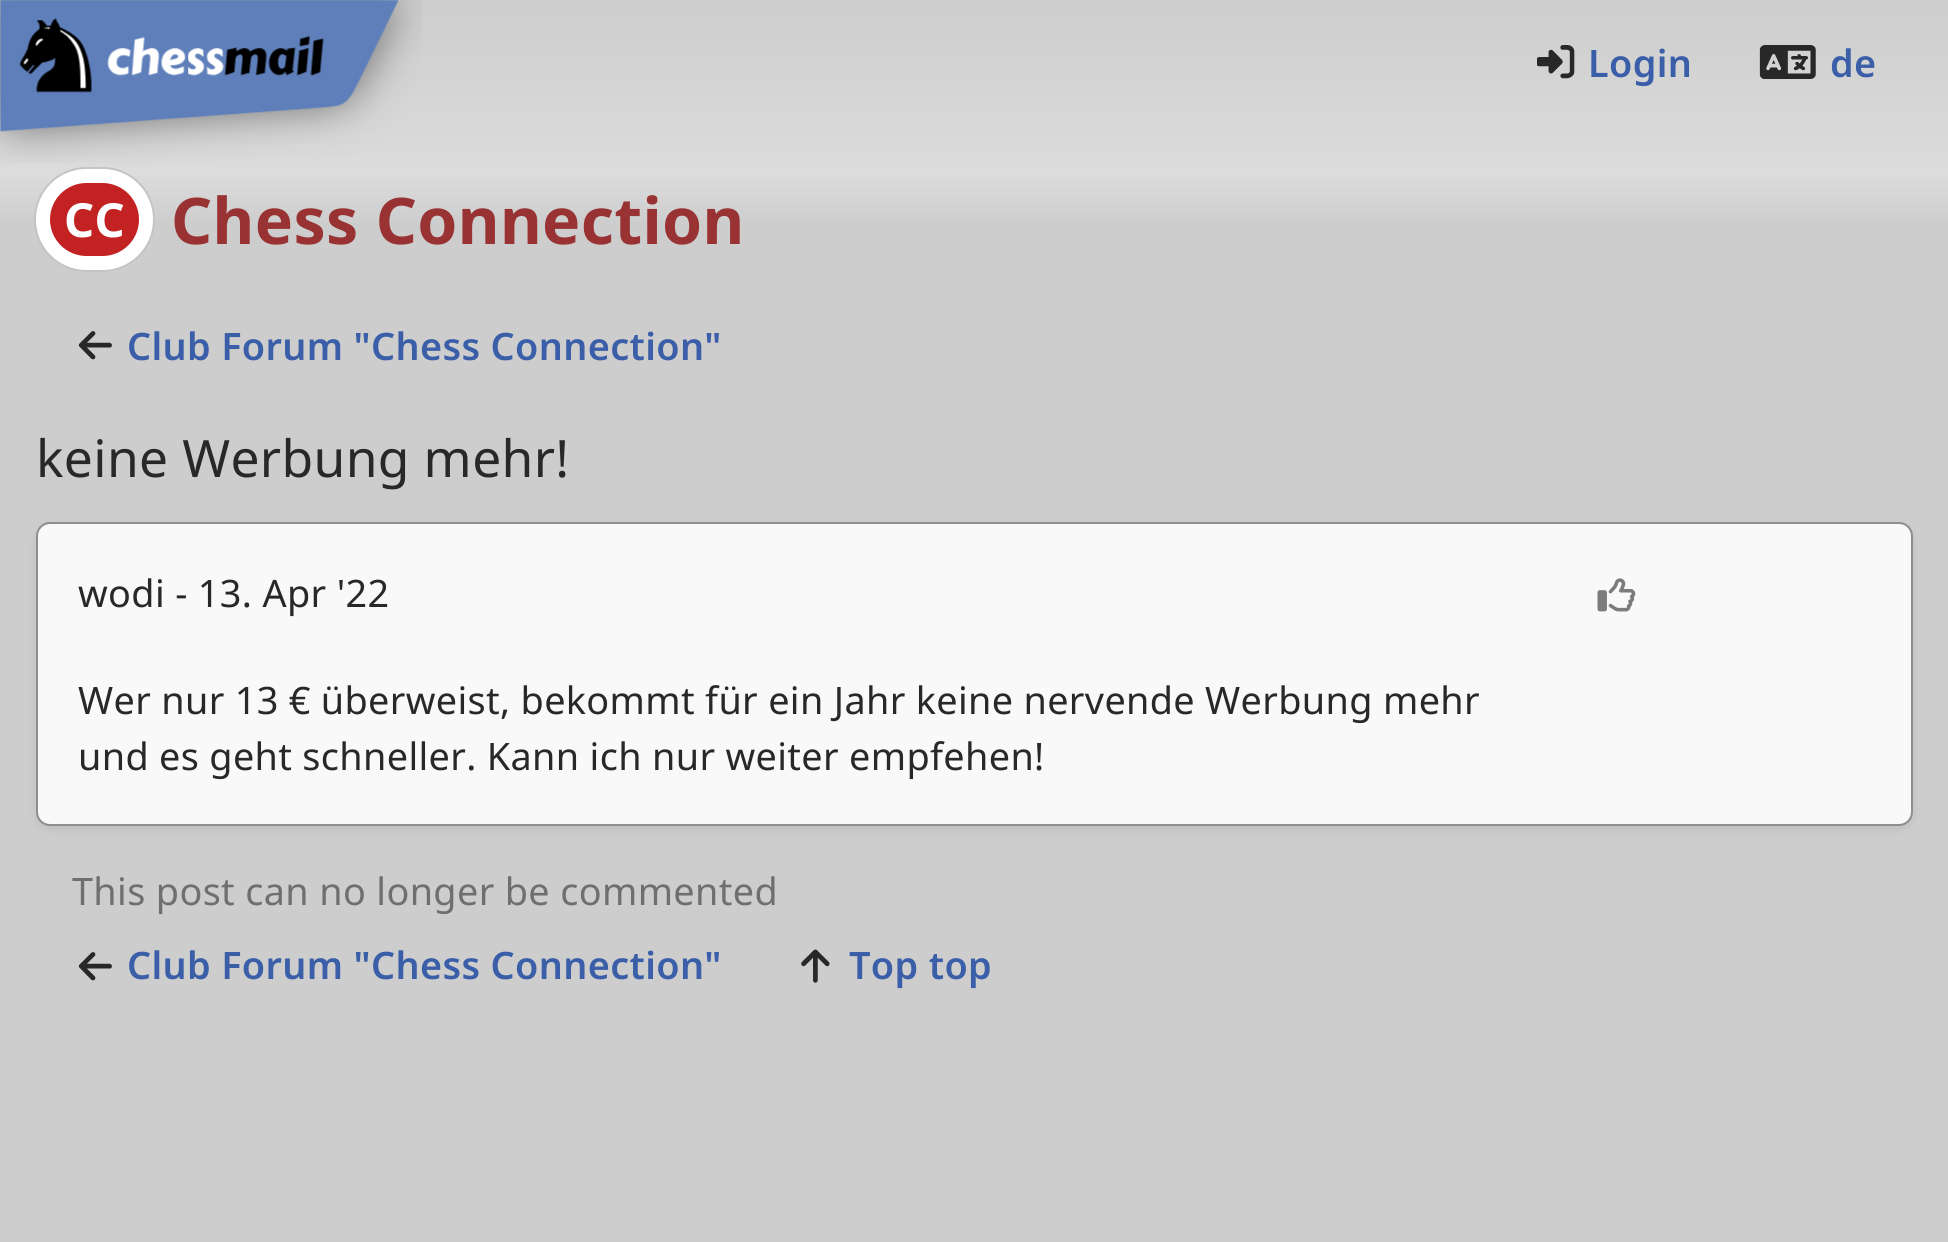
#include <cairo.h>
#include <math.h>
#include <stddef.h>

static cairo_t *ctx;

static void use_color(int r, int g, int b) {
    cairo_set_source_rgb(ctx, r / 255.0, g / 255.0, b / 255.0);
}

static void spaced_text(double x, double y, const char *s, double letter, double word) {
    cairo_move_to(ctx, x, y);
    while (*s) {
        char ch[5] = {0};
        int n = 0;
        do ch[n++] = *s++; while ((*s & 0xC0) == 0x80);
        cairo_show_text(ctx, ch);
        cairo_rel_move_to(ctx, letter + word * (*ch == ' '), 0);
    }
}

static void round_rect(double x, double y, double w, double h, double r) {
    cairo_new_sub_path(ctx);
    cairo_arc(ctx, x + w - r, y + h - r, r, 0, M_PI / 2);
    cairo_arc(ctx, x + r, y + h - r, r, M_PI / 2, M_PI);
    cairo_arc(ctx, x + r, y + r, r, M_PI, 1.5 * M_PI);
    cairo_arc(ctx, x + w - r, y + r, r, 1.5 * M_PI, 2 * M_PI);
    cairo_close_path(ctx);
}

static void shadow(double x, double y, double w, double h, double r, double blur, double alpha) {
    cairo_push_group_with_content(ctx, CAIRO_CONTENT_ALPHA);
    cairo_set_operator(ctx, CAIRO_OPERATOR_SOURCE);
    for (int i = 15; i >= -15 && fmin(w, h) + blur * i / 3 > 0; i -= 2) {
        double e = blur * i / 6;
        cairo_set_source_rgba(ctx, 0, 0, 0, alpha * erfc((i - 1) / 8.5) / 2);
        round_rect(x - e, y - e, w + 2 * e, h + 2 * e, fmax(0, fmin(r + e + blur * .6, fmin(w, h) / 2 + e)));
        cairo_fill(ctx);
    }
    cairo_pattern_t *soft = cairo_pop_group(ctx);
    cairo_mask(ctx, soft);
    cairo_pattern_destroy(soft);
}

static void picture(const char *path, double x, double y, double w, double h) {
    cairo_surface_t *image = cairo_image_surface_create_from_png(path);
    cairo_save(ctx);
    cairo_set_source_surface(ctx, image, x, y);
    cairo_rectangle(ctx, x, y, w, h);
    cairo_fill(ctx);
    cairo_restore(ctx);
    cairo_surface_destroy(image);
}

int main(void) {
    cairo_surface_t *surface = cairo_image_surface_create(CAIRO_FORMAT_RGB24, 1948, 1242);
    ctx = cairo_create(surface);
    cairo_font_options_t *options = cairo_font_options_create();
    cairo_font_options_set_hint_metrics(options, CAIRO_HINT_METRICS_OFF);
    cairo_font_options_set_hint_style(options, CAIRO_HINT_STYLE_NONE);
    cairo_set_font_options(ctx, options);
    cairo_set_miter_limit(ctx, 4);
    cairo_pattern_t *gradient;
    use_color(255, 255, 255);
    cairo_paint(ctx);
    gradient = cairo_pattern_create_linear(974, 0, 974, 1242);
    cairo_pattern_add_color_stop_rgba(gradient, 0, 0.804, 0.804, 0.804, 1);
    cairo_pattern_add_color_stop_rgba(gradient, 0.14, 0.863, 0.863, 0.863, 1);
    cairo_pattern_add_color_stop_rgba(gradient, 0.18, 0.804, 0.804, 0.804, 1);
    cairo_set_source(ctx, gradient);
    cairo_pattern_destroy(gradient);
    cairo_rectangle(ctx, 0, 0, 1948, 1242);
    cairo_fill(ctx);
    picture("img1.png", 0, 0, 422, 163);
    picture("img2.png", 1537, 45, 38, 34);
    cairo_select_font_face(ctx, "Noto Sans SemiBold", CAIRO_FONT_SLANT_NORMAL, CAIRO_FONT_WEIGHT_NORMAL);
    cairo_set_font_size(ctx, 37.8);
    use_color(58, 95, 168);
    spaced_text(1588, 77, "Login", 0.35, 0);
    picture("img3.png", 1759, 45, 57, 34);
    spaced_text(1830, 77, "de", 0.35, 0);
    round_rect(35, 168, 119, 103, 51.5);
    use_color(196, 196, 196);
    cairo_stroke(ctx);
    use_color(195, 34, 34);
    round_rect(43, 176, 103, 87, 43.5);
    cairo_fill_preserve(ctx);
    use_color(255, 255, 255);
    cairo_set_line_width(ctx, 14);
    cairo_stroke(ctx);
    cairo_select_font_face(ctx, "Noto Sans", CAIRO_FONT_SLANT_NORMAL, CAIRO_FONT_WEIGHT_BOLD);
    cairo_set_font_size(ctx, 47);
    spaced_text(64, 237, "CC", 0.35, 0);
    cairo_set_font_size(ctx, 64.25);
    use_color(153, 51, 51);
    spaced_text(171, 244, "Chess Connection", 0.35, 0);
    picture("img4.png", 78, 331, 34, 29);
    cairo_select_font_face(ctx, "Noto Sans SemiBold", CAIRO_FONT_SLANT_NORMAL, CAIRO_FONT_WEIGHT_NORMAL);
    cairo_set_font_size(ctx, 37.8);
    use_color(58, 95, 168);
    spaced_text(127, 360, "Club Forum \"Chess Connection\"", 0.35, 0);
    cairo_select_font_face(ctx, "Noto Sans", CAIRO_FONT_SLANT_NORMAL, CAIRO_FONT_WEIGHT_NORMAL);
    cairo_set_font_size(ctx, 51.5);
    use_color(40, 40, 40);
    spaced_text(36, 477, "keine Werbung mehr!", 0.35, 0);
    use_color(0, 0, 0);
    shadow(36, 527, 1877, 303, 14, 4.5, 0.07);
    use_color(249, 249, 249);
    round_rect(37, 523, 1875, 302, 13);
    cairo_fill_preserve(ctx);
    use_color(142, 142, 142);
    cairo_set_line_width(ctx, 2);
    cairo_stroke(ctx);
    cairo_set_font_size(ctx, 37.8);
    use_color(40, 40, 40);
    spaced_text(78, 607, "wodi - 13. Apr '22", 0.35, 0);
    picture("img5.png", 1597, 578, 39, 34);
    spaced_text(78, 714, "Wer nur 13 € überweist, bekommt für ein Jahr keine nervende Werbung mehr", 0.35, -0.1);
    spaced_text(78, 770, "und es geht schneller. Kann ich nur weiter empfehen!", 0.35, -0.1);
    use_color(111, 111, 111);
    spaced_text(72, 905, "This post can no longer be commented", 0.35, 0);
    picture("img4.png", 78, 952, 34, 29);
    cairo_select_font_face(ctx, "Noto Sans SemiBold", CAIRO_FONT_SLANT_NORMAL, CAIRO_FONT_WEIGHT_NORMAL);
    use_color(58, 95, 168);
    spaced_text(127, 979, "Club Forum \"Chess Connection\"", 0.35, 0);
    picture("img6.png", 801, 949, 29, 34);
    spaced_text(849, 979, "Top top", 0.35, 0);
    cairo_surface_write_to_png(surface, "result.png");
    cairo_font_options_destroy(options);
    cairo_destroy(ctx);
    cairo_surface_destroy(surface);
    return 0;
}
